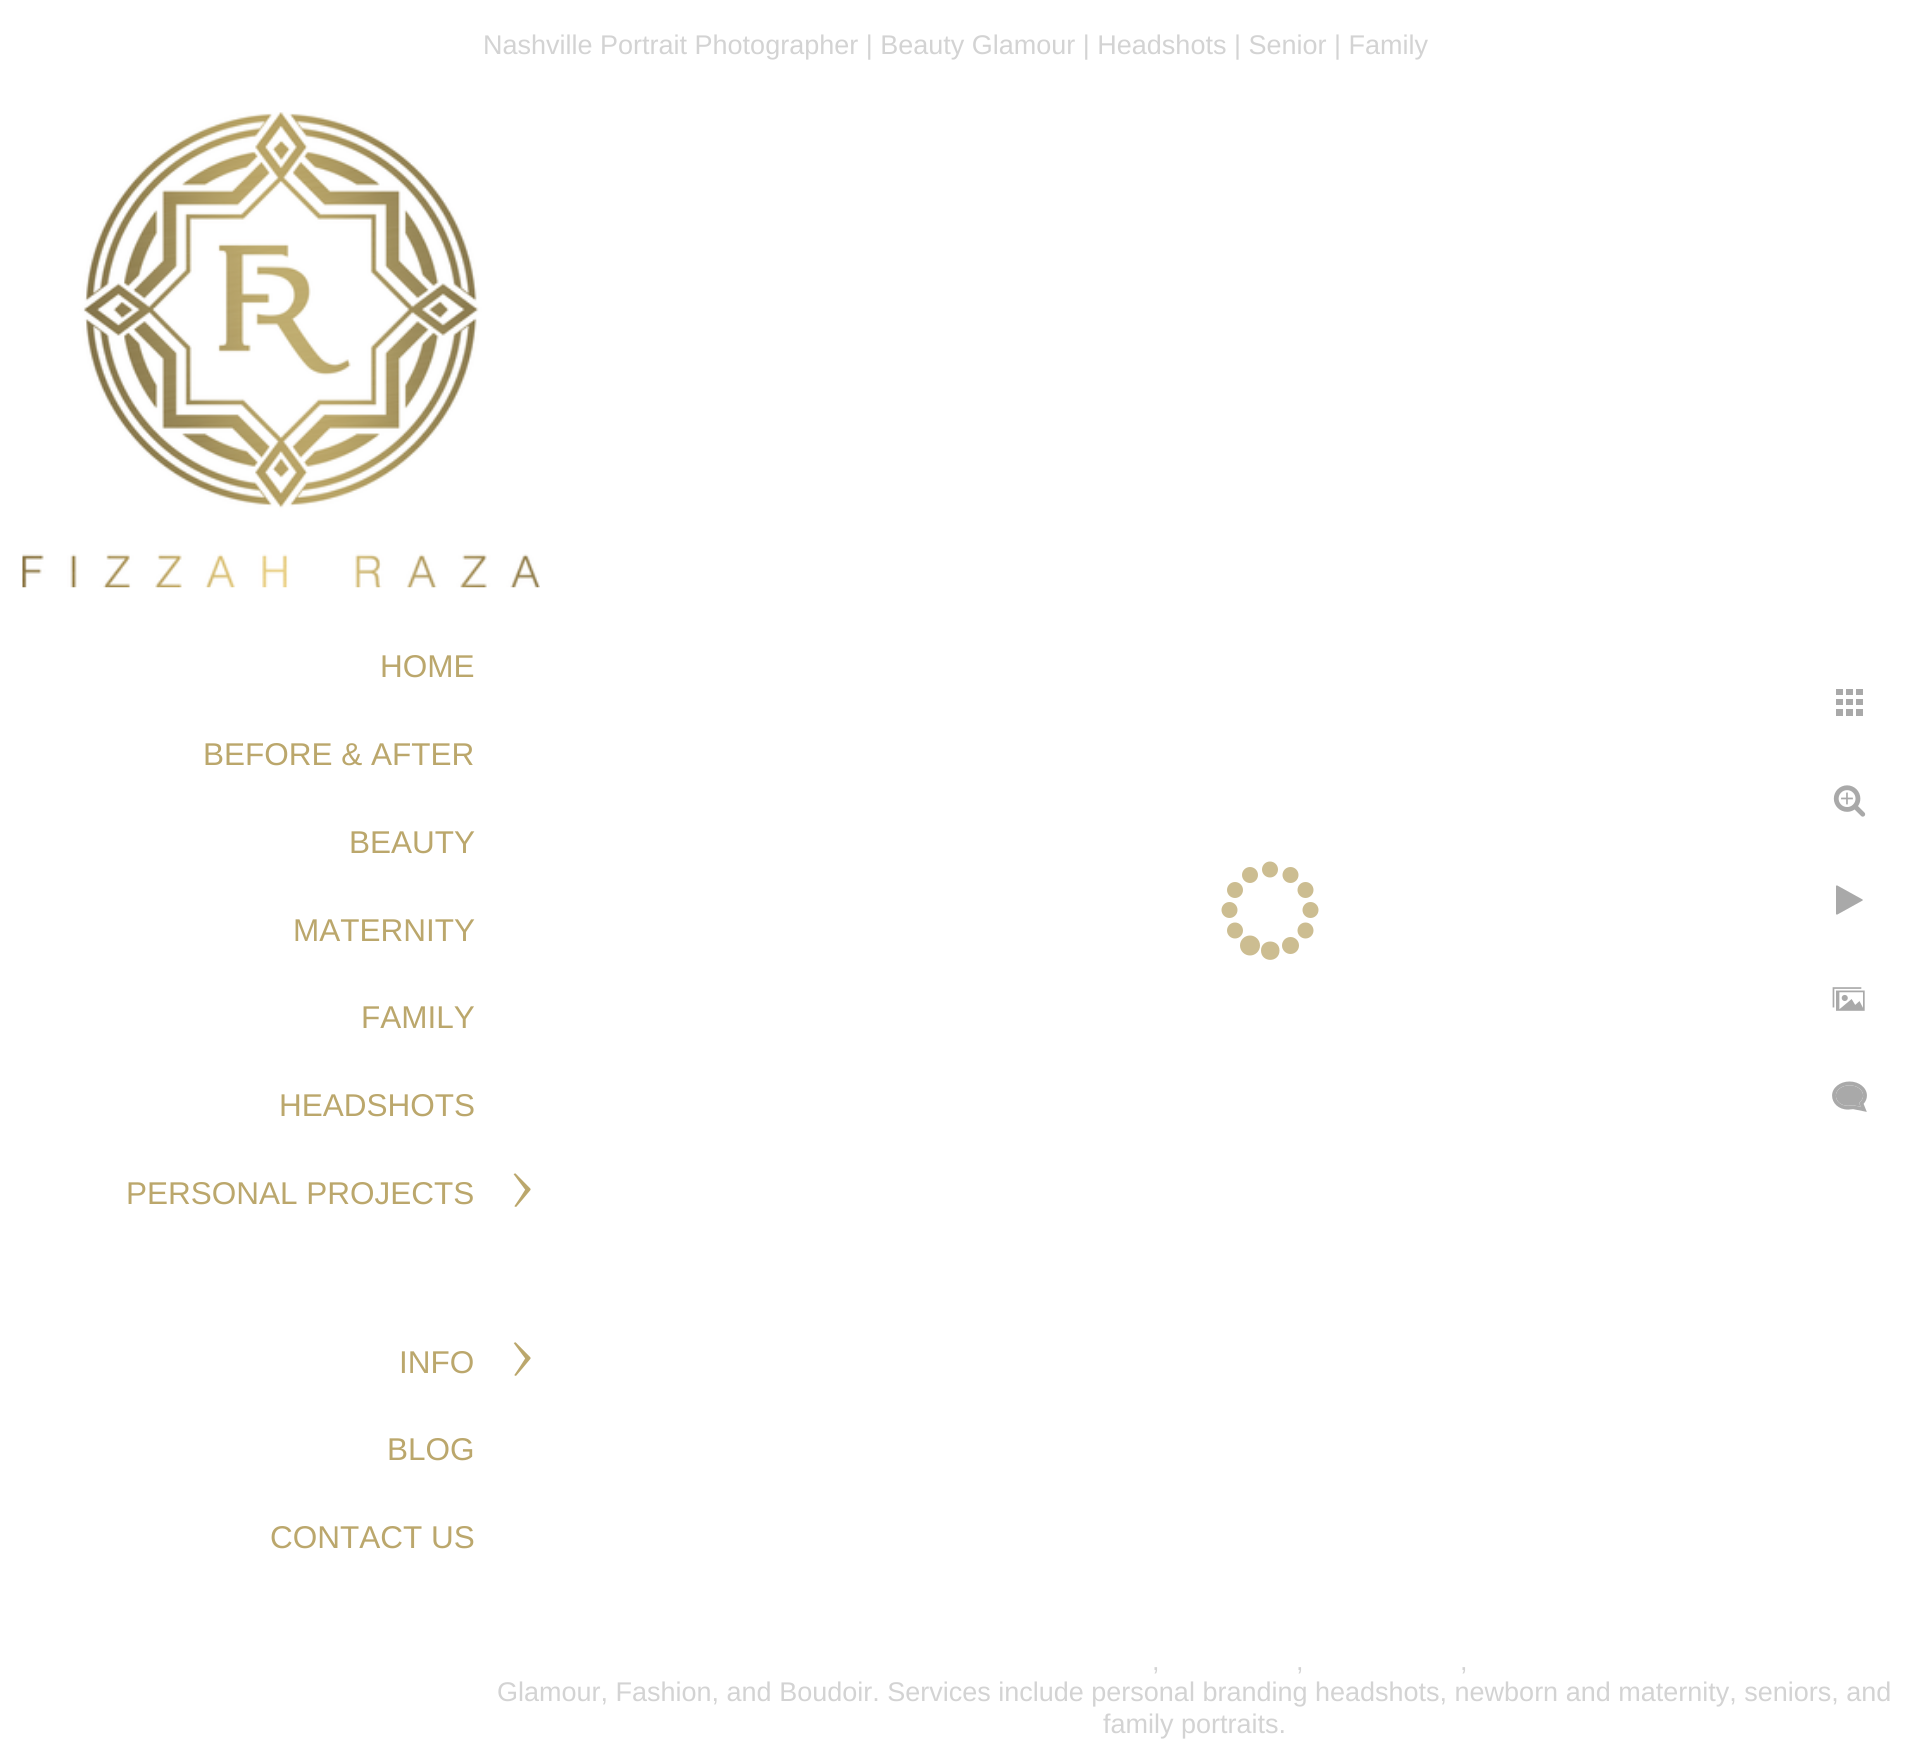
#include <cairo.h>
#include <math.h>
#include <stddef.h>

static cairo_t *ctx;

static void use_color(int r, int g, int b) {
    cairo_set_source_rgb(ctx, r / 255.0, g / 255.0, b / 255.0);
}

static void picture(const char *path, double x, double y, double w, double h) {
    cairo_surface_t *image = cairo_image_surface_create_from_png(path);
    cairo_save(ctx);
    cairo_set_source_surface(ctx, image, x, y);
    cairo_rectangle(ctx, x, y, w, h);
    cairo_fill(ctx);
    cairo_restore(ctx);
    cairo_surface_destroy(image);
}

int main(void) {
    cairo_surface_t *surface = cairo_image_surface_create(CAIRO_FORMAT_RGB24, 1910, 1751);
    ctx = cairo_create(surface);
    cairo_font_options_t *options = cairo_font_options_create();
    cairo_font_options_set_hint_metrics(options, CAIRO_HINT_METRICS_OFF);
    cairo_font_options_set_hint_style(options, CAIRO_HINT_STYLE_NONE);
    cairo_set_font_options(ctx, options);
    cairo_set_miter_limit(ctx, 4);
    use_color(255, 255, 255);
    cairo_paint(ctx);
    cairo_select_font_face(ctx, "Liberation Sans", CAIRO_FONT_SLANT_NORMAL, CAIRO_FONT_WEIGHT_NORMAL);
    cairo_set_font_size(ctx, 27);
    use_color(211, 211, 211);
    cairo_move_to(ctx, 483, 54);
    cairo_show_text(ctx, "Nashville Portrait Photographer | Beauty Glamour | Headshots | Senior | Family");
    picture("img1.png", 22, 112, 518, 476);
    cairo_set_font_size(ctx, 31.5);
    use_color(187, 167, 108);
    cairo_move_to(ctx, 380, 677);
    cairo_show_text(ctx, "HOME");
    cairo_move_to(ctx, 203, 765);
    cairo_show_text(ctx, "BEFORE & AFTER");
    cairo_move_to(ctx, 349, 853);
    cairo_show_text(ctx, "BEAUTY");
    cairo_move_to(ctx, 293, 941);
    cairo_show_text(ctx, "MATERNITY");
    cairo_move_to(ctx, 361, 1028);
    cairo_show_text(ctx, "FAMILY");
    cairo_move_to(ctx, 279, 1116);
    cairo_show_text(ctx, "HEADSHOTS");
    cairo_move_to(ctx, 126, 1204);
    cairo_show_text(ctx, "PERSONAL PROJECTS");
    picture("img2.png", 513, 1173, 18, 34);
    cairo_move_to(ctx, 399, 1373);
    cairo_show_text(ctx, "INFO");
    picture("img3.png", 513, 1342, 18, 34);
    cairo_move_to(ctx, 387, 1460);
    cairo_show_text(ctx, "BLOG");
    cairo_move_to(ctx, 270, 1548);
    cairo_show_text(ctx, "CONTACT US");
    use_color(204, 189, 145);
    cairo_new_path(ctx);
    cairo_arc(ctx, 1270, 869.5, 8, 0, 2 * M_PI);
    cairo_fill(ctx);
    cairo_arc(ctx, 1250, 875, 8, 0, 2 * M_PI);
    cairo_fill(ctx);
    cairo_arc(ctx, 1235, 890, 8, 0, 2 * M_PI);
    cairo_fill(ctx);
    cairo_arc(ctx, 1229.5, 910, 8, 0, 2 * M_PI);
    cairo_fill(ctx);
    cairo_arc(ctx, 1235, 930.5, 8, 0, 2 * M_PI);
    cairo_fill(ctx);
    cairo_arc(ctx, 1250, 945.5, 10, 0, 2 * M_PI);
    cairo_fill(ctx);
    cairo_new_path(ctx);
    cairo_move_to(ctx, 1261, 950.5);
    cairo_curve_to(ctx, 1261, 938.5, 1279.5, 938.5, 1279.5, 950.5);
    cairo_curve_to(ctx, 1279.5, 963, 1261, 963, 1261, 950.5);
    cairo_close_path(ctx);
    cairo_fill(ctx);
    cairo_arc(ctx, 1290.5, 945.5, 8.5, 0, 2 * M_PI);
    cairo_fill(ctx);
    cairo_arc(ctx, 1305.5, 930.5, 8, 0, 2 * M_PI);
    cairo_fill(ctx);
    cairo_arc(ctx, 1310.5, 910, 8, 0, 2 * M_PI);
    cairo_fill(ctx);
    cairo_arc(ctx, 1305.5, 890, 8, 0, 2 * M_PI);
    cairo_fill(ctx);
    cairo_arc(ctx, 1290.5, 875, 8, 0, 2 * M_PI);
    cairo_fill(ctx);
    picture("img4.png", 1836, 689, 27, 27);
    picture("img5.png", 1833, 785, 33, 32);
    picture("img6.png", 1836, 885, 27, 30);
    picture("img7.png", 1832, 987, 33, 24);
    picture("img8.png", 1832, 1081, 35, 31);
    cairo_set_font_size(ctx, 27);
    use_color(211, 211, 211);
    cairo_move_to(ctx, 1152, 1670);
    cairo_show_text(ctx, ",");
    cairo_move_to(ctx, 1296, 1670);
    cairo_show_text(ctx, ",");
    cairo_move_to(ctx, 1460, 1670);
    cairo_show_text(ctx, ",");
    cairo_move_to(ctx, 497, 1701);
    cairo_show_text(ctx, "Glamour, Fashion, and Boudoir. Services include personal branding headshots, newborn and maternity, seniors, and");
    cairo_move_to(ctx, 1103, 1733);
    cairo_show_text(ctx, "family portraits.");
    cairo_surface_write_to_png(surface, "result.png");
    cairo_font_options_destroy(options);
    cairo_destroy(ctx);
    cairo_surface_destroy(surface);
    return 0;
}
